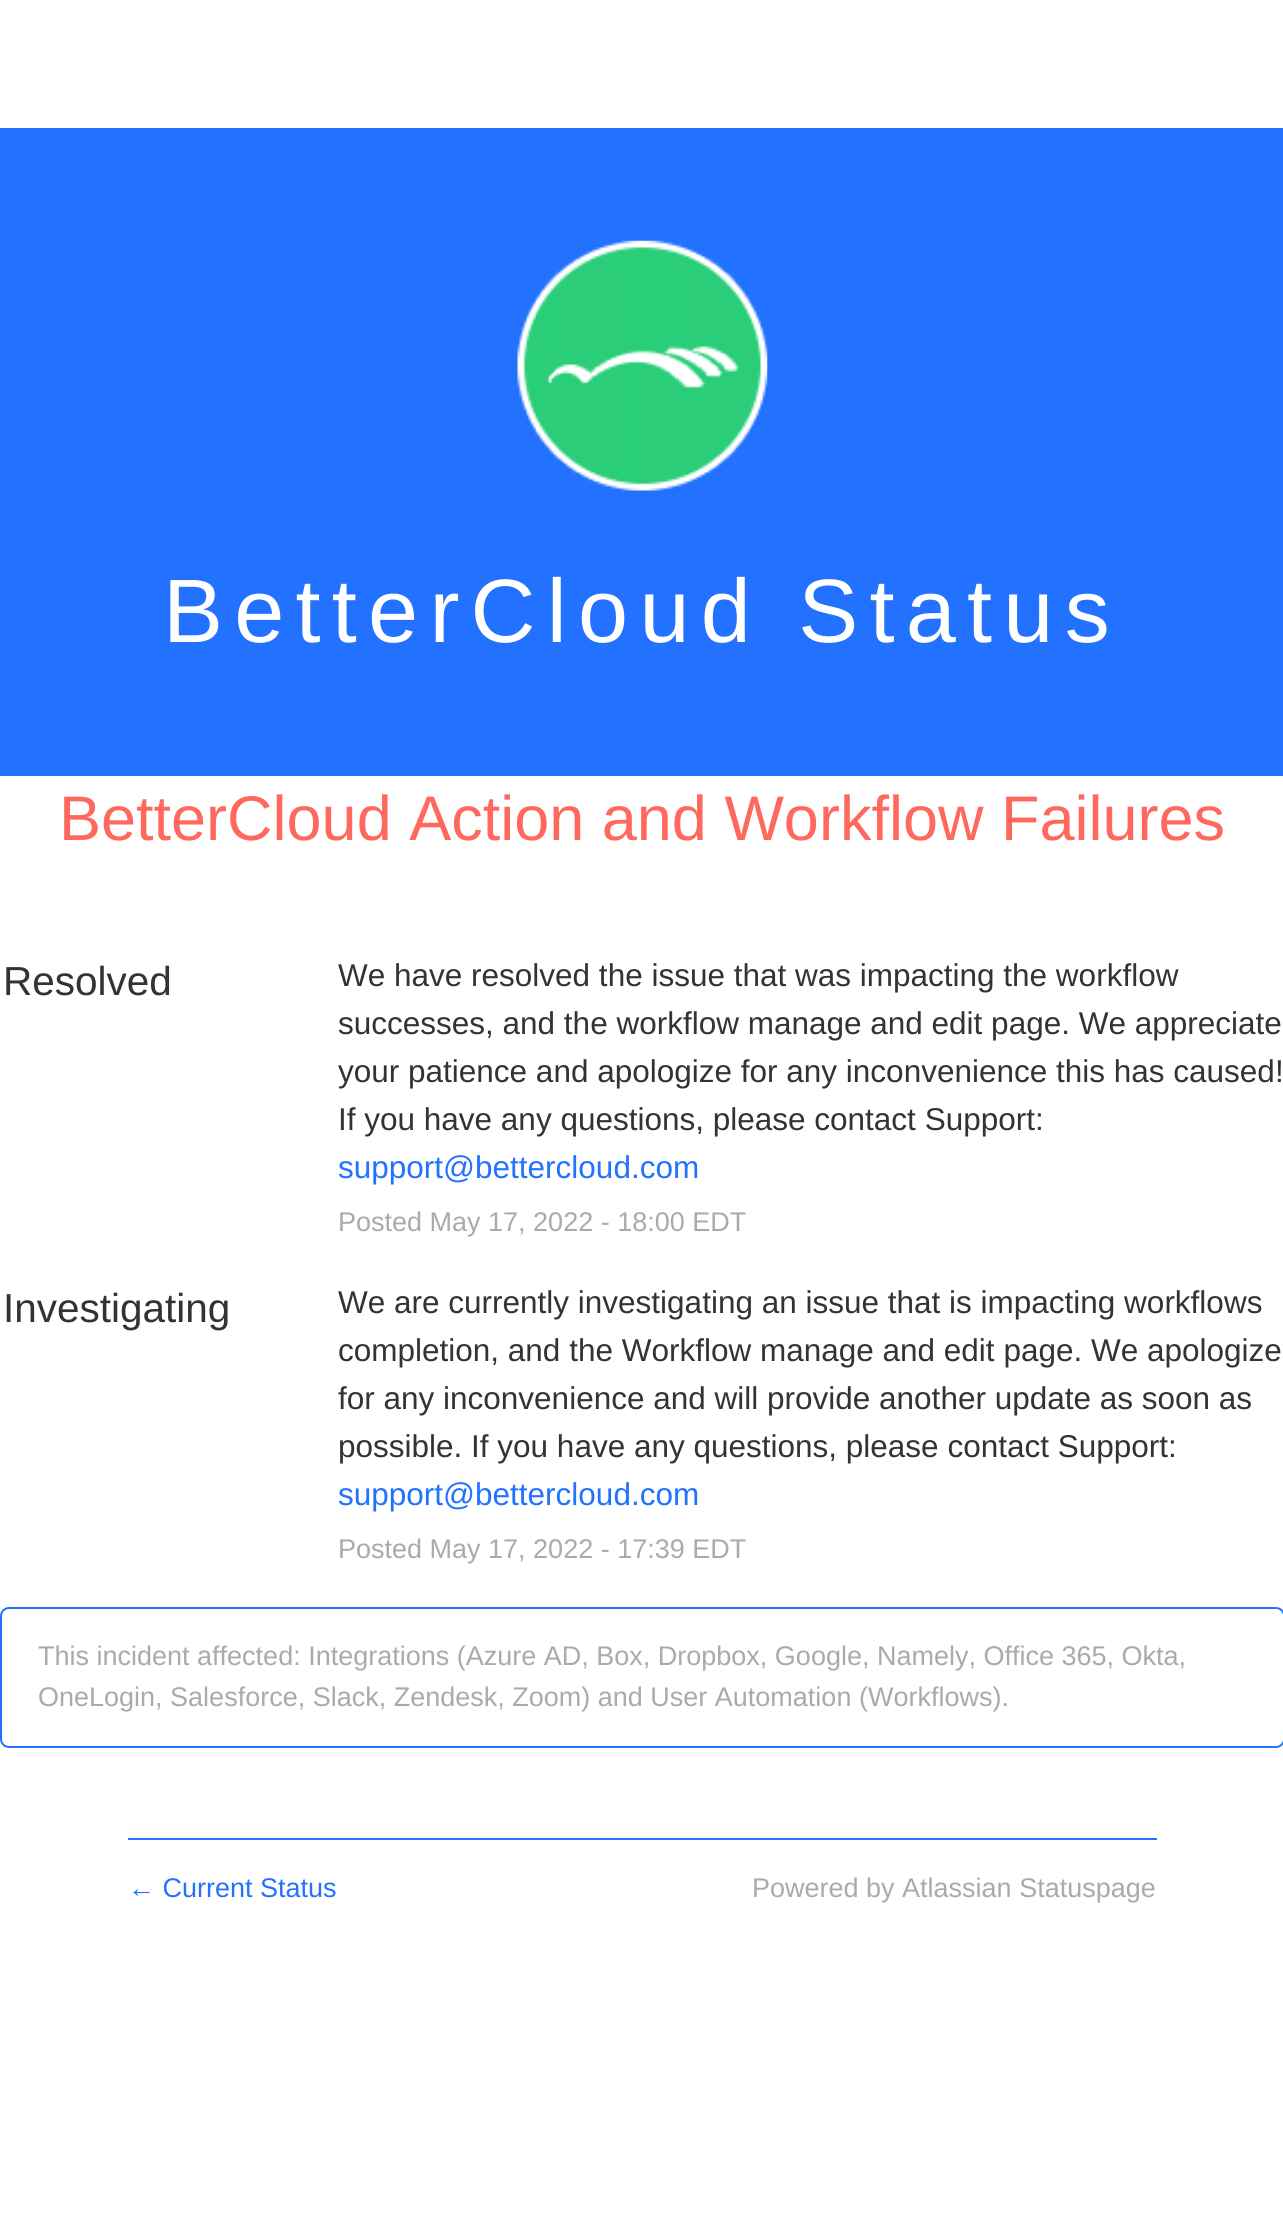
#include <cairo.h>
#include <math.h>
#include <stddef.h>

static cairo_t *ctx;

static void use_color(int r, int g, int b) {
    cairo_set_source_rgb(ctx, r / 255.0, g / 255.0, b / 255.0);
}

static void spaced_text(double x, double y, const char *s, double letter, double word) {
    cairo_move_to(ctx, x, y);
    while (*s) {
        char ch[5] = {0};
        int n = 0;
        do ch[n++] = *s++; while ((*s & 0xC0) == 0x80);
        cairo_show_text(ctx, ch);
        cairo_rel_move_to(ctx, letter + word * (*ch == ' '), 0);
    }
}

static void round_rect(double x, double y, double w, double h, double r) {
    cairo_new_sub_path(ctx);
    cairo_arc(ctx, x + w - r, y + h - r, r, 0, M_PI / 2);
    cairo_arc(ctx, x + r, y + h - r, r, M_PI / 2, M_PI);
    cairo_arc(ctx, x + r, y + r, r, M_PI, 1.5 * M_PI);
    cairo_arc(ctx, x + w - r, y + r, r, 1.5 * M_PI, 2 * M_PI);
    cairo_close_path(ctx);
}

static void picture(const char *path, double x, double y, double w, double h) {
    cairo_surface_t *image = cairo_image_surface_create_from_png(path);
    cairo_save(ctx);
    cairo_set_source_surface(ctx, image, x, y);
    cairo_rectangle(ctx, x, y, w, h);
    cairo_fill(ctx);
    cairo_restore(ctx);
    cairo_surface_destroy(image);
}

int main(void) {
    cairo_surface_t *surface = cairo_image_surface_create(CAIRO_FORMAT_RGB24, 1283, 2216);
    ctx = cairo_create(surface);
    cairo_font_options_t *options = cairo_font_options_create();
    cairo_font_options_set_hint_metrics(options, CAIRO_HINT_METRICS_OFF);
    cairo_font_options_set_hint_style(options, CAIRO_HINT_STYLE_NONE);
    cairo_set_font_options(ctx, options);
    cairo_set_miter_limit(ctx, 4);
    use_color(255, 255, 255);
    cairo_paint(ctx);
    use_color(34, 114, 255);
    cairo_rectangle(ctx, 0, 128, 1283, 648);
    cairo_fill(ctx);
    picture("img1.png", 517, 240, 251, 251);
    cairo_select_font_face(ctx, "Liberation Sans", CAIRO_FONT_SLANT_NORMAL, CAIRO_FONT_WEIGHT_NORMAL);
    cairo_set_font_size(ctx, 90);
    use_color(255, 255, 255);
    spaced_text(163, 642, "BetterCloud Status", 11.25, 0);
    cairo_set_font_size(ctx, 63);
    use_color(255, 104, 93);
    cairo_move_to(ctx, 59, 840);
    cairo_show_text(ctx, "BetterCloud Action and Workflow Failures");
    cairo_set_font_size(ctx, 40.5);
    use_color(51, 51, 51);
    cairo_move_to(ctx, 3, 995);
    cairo_show_text(ctx, "Resolved");
    cairo_set_font_size(ctx, 31.5);
    cairo_move_to(ctx, 338, 986);
    cairo_show_text(ctx, "We have resolved the issue that was impacting the workflow");
    cairo_move_to(ctx, 338, 1034);
    cairo_show_text(ctx, "successes, and the workflow manage and edit page. We appreciate");
    cairo_move_to(ctx, 338, 1082);
    cairo_show_text(ctx, "your patience and apologize for any inconvenience this has caused!");
    cairo_move_to(ctx, 338, 1130);
    cairo_show_text(ctx, "If you have any questions, please contact Support:");
    use_color(34, 114, 255);
    cairo_move_to(ctx, 338, 1178);
    cairo_show_text(ctx, "support@bettercloud.com");
    cairo_set_font_size(ctx, 27);
    use_color(170, 170, 170);
    cairo_move_to(ctx, 338, 1231);
    cairo_show_text(ctx, "Posted May 17, 2022 - 18:00 EDT");
    cairo_set_font_size(ctx, 40.5);
    use_color(51, 51, 51);
    cairo_move_to(ctx, 3, 1322);
    cairo_show_text(ctx, "Investigating");
    cairo_set_font_size(ctx, 31.5);
    cairo_move_to(ctx, 338, 1313);
    cairo_show_text(ctx, "We are currently investigating an issue that is impacting workflows");
    cairo_move_to(ctx, 338, 1361);
    cairo_show_text(ctx, "completion, and the Workflow manage and edit page. We apologize");
    cairo_move_to(ctx, 338, 1409);
    cairo_show_text(ctx, "for any inconvenience and will provide another update as soon as");
    cairo_move_to(ctx, 338, 1457);
    cairo_show_text(ctx, "possible. If you have any questions, please contact Support:");
    use_color(34, 114, 255);
    cairo_move_to(ctx, 338, 1505);
    cairo_show_text(ctx, "support@bettercloud.com");
    cairo_set_font_size(ctx, 27);
    use_color(170, 170, 170);
    cairo_move_to(ctx, 338, 1558);
    cairo_show_text(ctx, "Posted May 17, 2022 - 17:39 EDT");
    round_rect(1, 1608, 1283, 139, 8);
    use_color(34, 114, 255);
    cairo_stroke(ctx);
    use_color(170, 170, 170);
    cairo_move_to(ctx, 38, 1665);
    cairo_show_text(ctx, "This incident affected: Integrations (Azure AD, Box, Dropbox, Google, Namely, Office 365, Okta,");
    cairo_move_to(ctx, 38, 1706);
    cairo_show_text(ctx, "OneLogin, Salesforce, Slack, Zendesk, Zoom) and User Automation (Workflows).");
    use_color(34, 114, 255);
    cairo_rectangle(ctx, 128, 1838, 1029, 2);
    cairo_fill(ctx);
    cairo_move_to(ctx, 128, 1897);
    cairo_show_text(ctx, "← Current Status");
    use_color(170, 170, 170);
    cairo_move_to(ctx, 752, 1897);
    cairo_show_text(ctx, "Powered by Atlassian Statuspage");
    cairo_surface_write_to_png(surface, "result.png");
    cairo_font_options_destroy(options);
    cairo_destroy(ctx);
    cairo_surface_destroy(surface);
    return 0;
}
